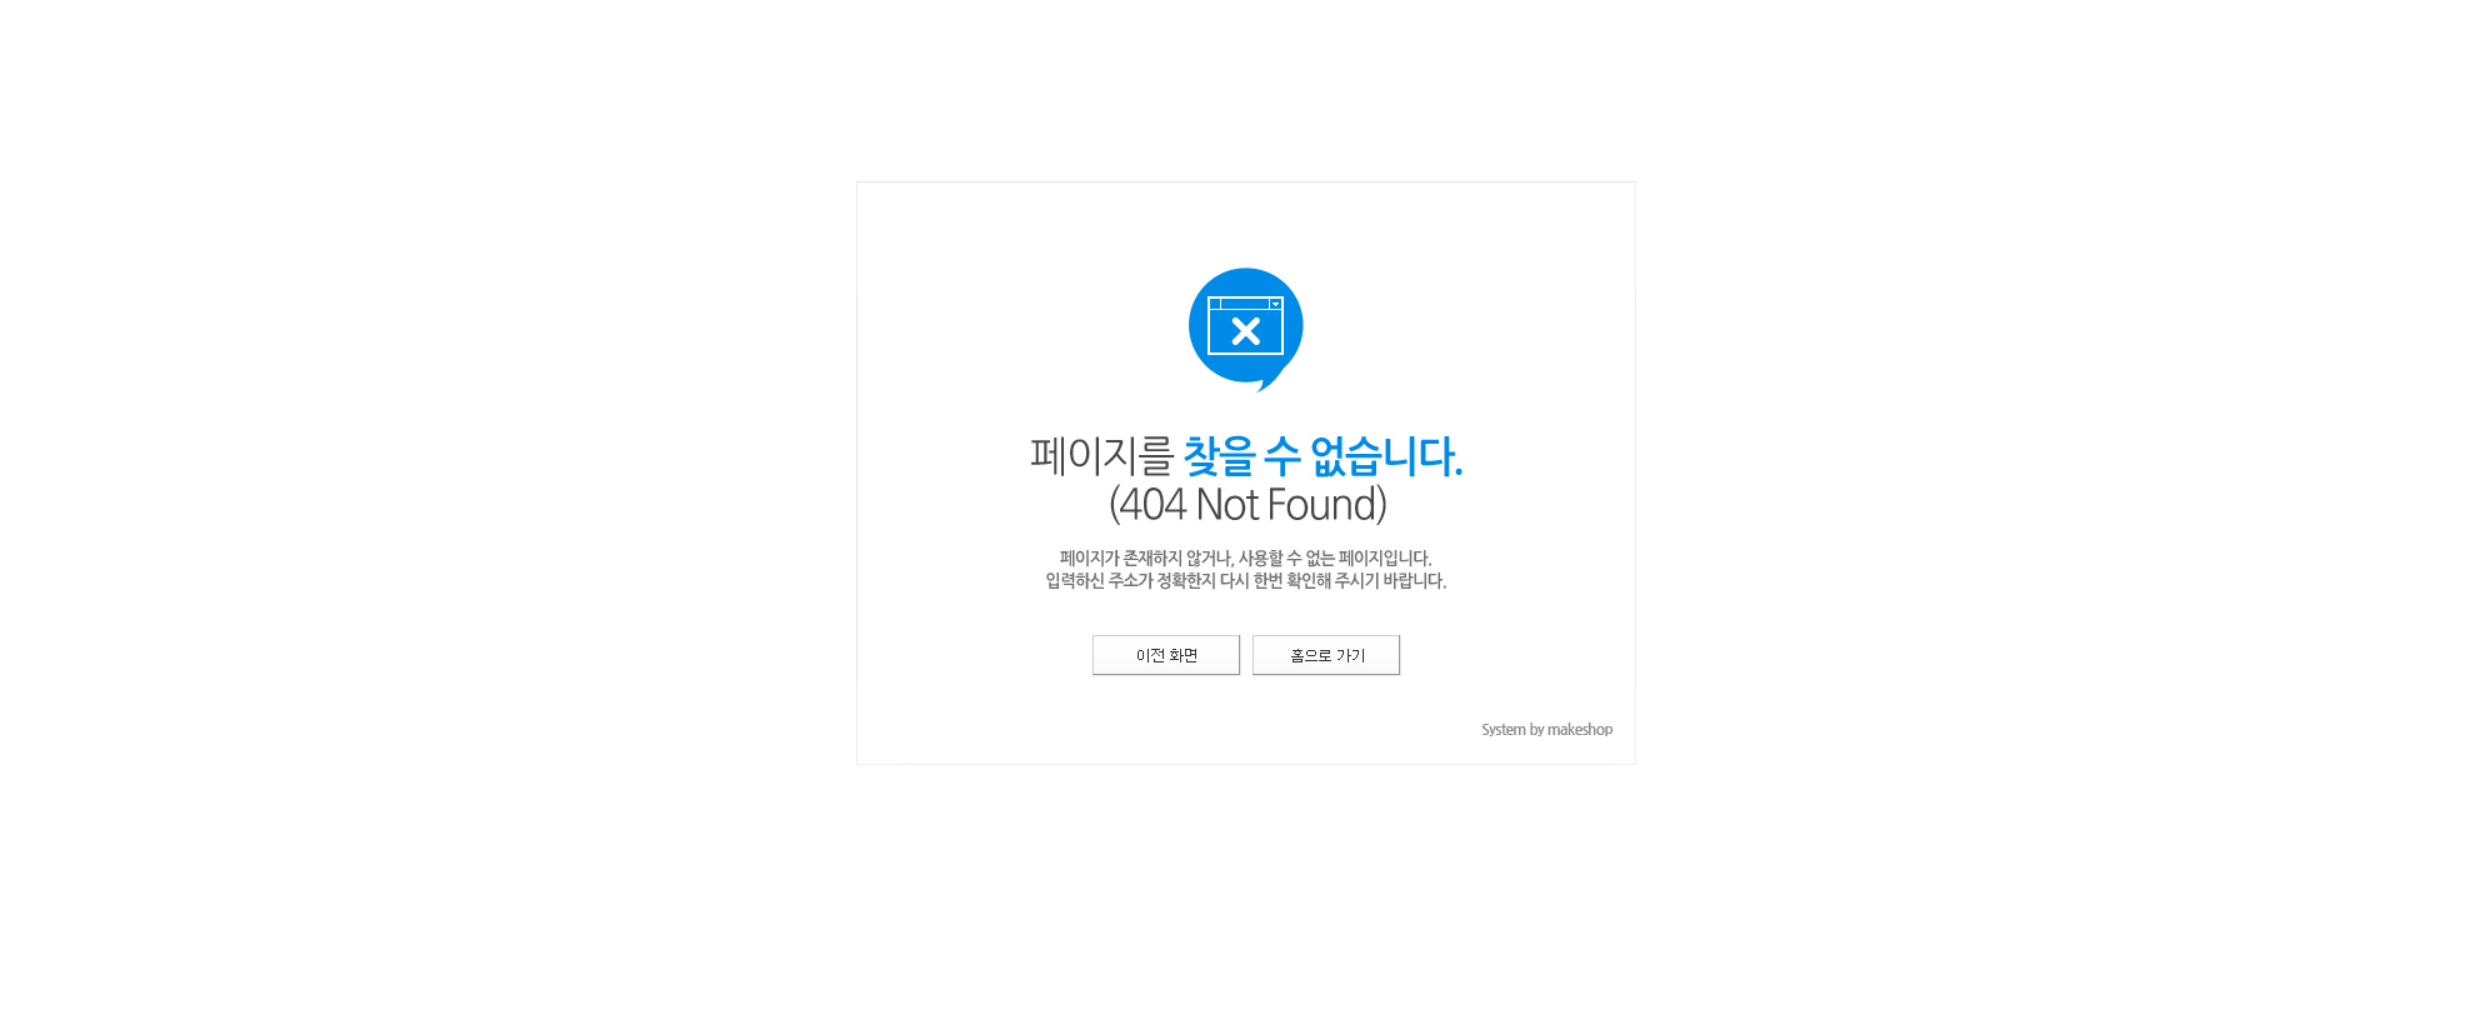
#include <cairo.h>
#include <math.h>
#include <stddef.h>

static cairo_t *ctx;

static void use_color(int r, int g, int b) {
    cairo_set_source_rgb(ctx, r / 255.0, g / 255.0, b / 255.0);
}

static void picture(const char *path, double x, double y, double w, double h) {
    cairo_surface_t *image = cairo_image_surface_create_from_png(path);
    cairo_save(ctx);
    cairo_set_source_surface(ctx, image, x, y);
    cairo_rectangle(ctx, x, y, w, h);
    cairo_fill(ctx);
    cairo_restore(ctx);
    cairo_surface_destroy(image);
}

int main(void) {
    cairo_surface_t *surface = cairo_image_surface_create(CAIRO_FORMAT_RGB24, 2492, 1029);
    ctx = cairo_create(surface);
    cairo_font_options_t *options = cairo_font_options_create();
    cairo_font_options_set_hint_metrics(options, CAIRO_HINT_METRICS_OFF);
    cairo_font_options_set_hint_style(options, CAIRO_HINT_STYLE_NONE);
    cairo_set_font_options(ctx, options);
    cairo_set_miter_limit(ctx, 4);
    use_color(255, 255, 255);
    cairo_paint(ctx);
    picture("img1.png", 856, 181, 781, 584);
    cairo_surface_write_to_png(surface, "result.png");
    cairo_font_options_destroy(options);
    cairo_destroy(ctx);
    cairo_surface_destroy(surface);
    return 0;
}
